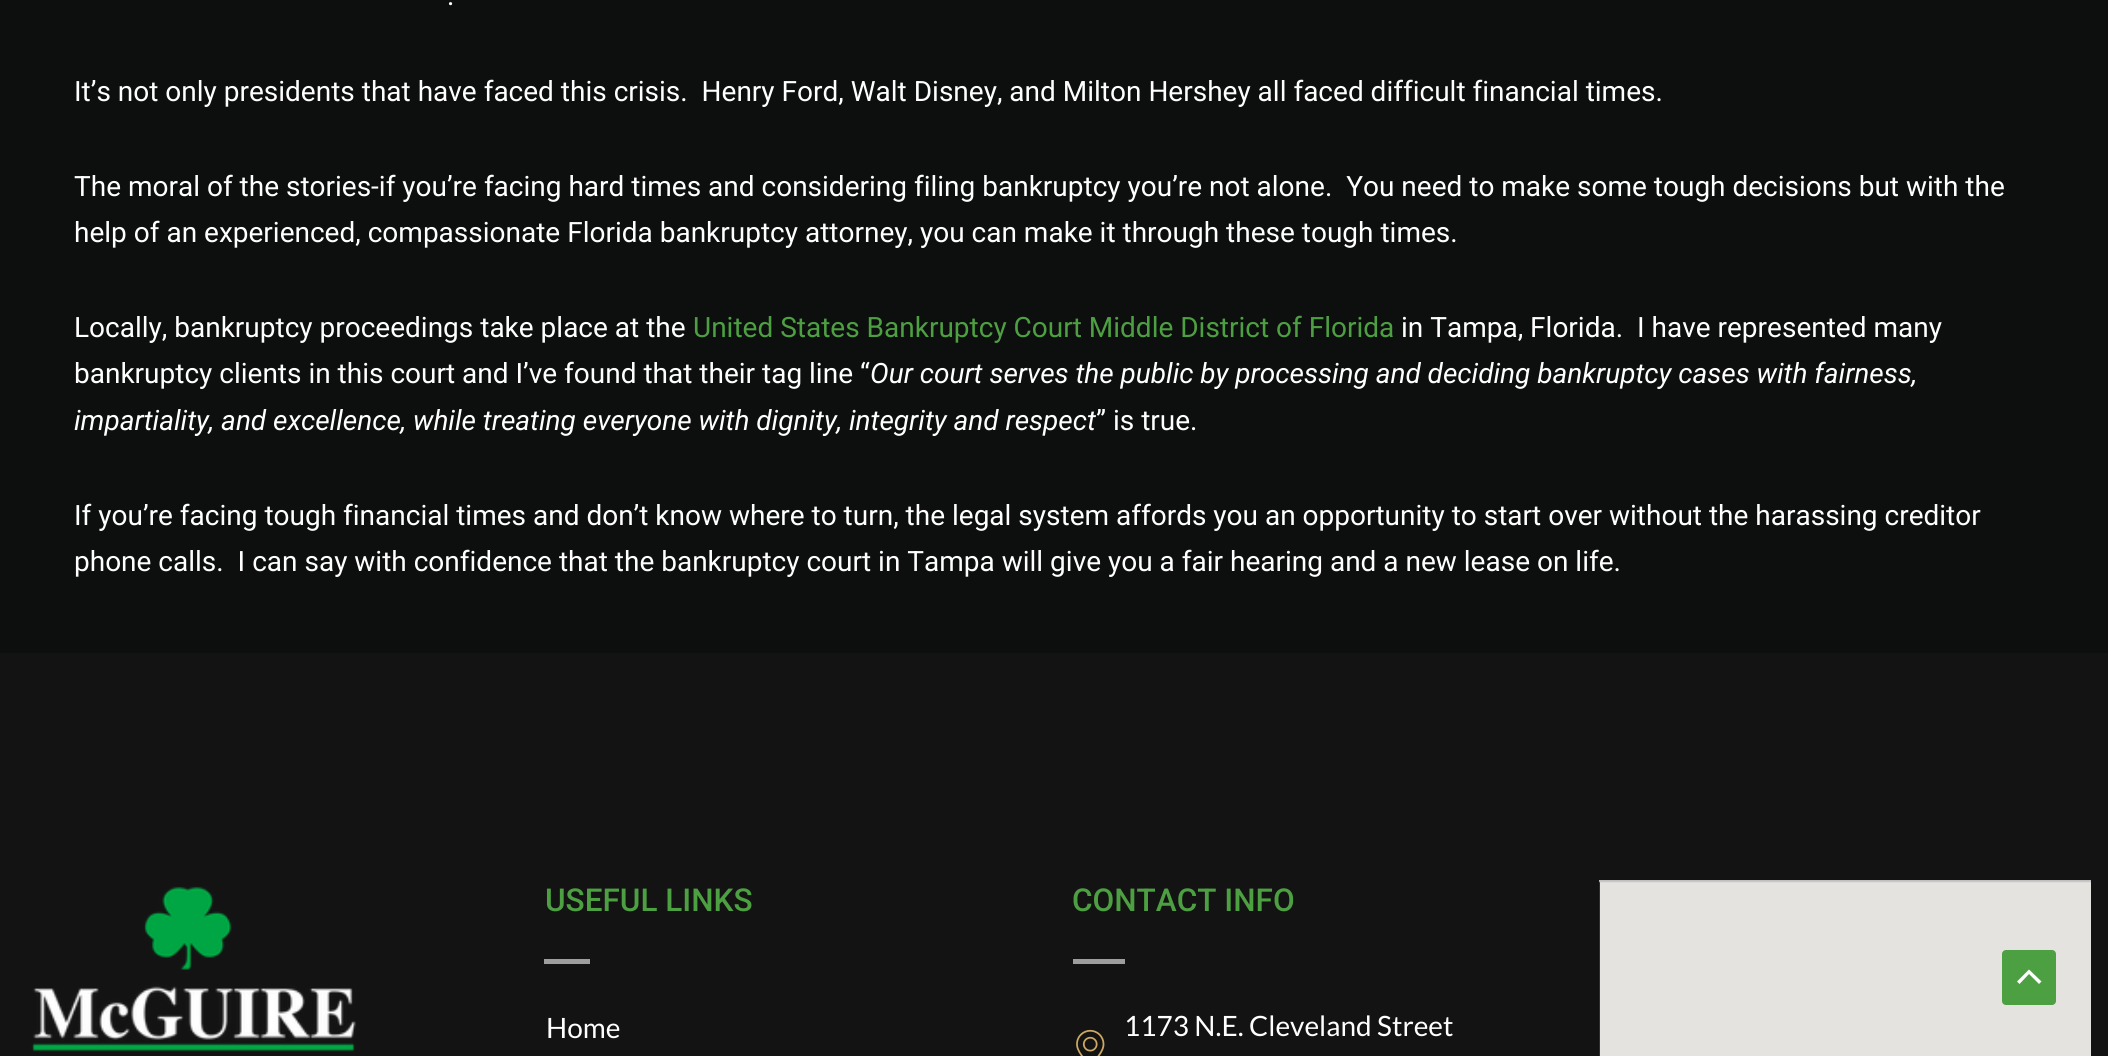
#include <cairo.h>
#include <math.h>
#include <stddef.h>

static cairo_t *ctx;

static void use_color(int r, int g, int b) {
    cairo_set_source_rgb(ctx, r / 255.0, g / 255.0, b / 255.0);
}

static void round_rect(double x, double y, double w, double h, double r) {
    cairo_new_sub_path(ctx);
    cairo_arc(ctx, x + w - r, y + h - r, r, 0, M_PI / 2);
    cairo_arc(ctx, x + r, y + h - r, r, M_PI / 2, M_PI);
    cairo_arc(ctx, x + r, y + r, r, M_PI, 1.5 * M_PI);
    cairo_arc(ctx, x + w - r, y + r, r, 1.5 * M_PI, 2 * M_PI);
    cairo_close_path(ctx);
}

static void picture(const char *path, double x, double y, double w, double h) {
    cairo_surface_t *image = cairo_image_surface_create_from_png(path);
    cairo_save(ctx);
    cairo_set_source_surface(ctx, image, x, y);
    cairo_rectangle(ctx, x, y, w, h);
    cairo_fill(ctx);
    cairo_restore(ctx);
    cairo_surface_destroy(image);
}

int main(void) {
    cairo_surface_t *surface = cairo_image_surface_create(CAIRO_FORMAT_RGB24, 2108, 1056);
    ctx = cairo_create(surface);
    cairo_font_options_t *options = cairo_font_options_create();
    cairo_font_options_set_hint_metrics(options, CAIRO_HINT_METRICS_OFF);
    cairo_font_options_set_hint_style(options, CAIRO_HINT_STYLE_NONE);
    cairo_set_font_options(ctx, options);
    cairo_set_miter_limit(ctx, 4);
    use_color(13, 14, 14);
    cairo_paint(ctx);
    cairo_select_font_face(ctx, "Roboto", CAIRO_FONT_SLANT_NORMAL, CAIRO_FONT_WEIGHT_NORMAL);
    cairo_set_font_size(ctx, 28);
    use_color(255, 255, 255);
    cairo_move_to(ctx, 447, 5);
    cairo_show_text(ctx, ".");
    cairo_move_to(ctx, 74, 101);
    cairo_show_text(ctx, "It’s not only presidents that have faced this crisis.  Henry Ford, Walt Disney, and Milton Hershey all faced difficult financial times.");
    cairo_move_to(ctx, 74, 196);
    cairo_show_text(ctx, "The moral of the stories-if you’re facing hard times and considering filing bankruptcy you’re not alone.  You need to make some tough decisions but with the");
    cairo_move_to(ctx, 74, 242);
    cairo_show_text(ctx, "help of an experienced, compassionate Florida bankruptcy attorney, you can make it through these tough times.");
    cairo_move_to(ctx, 74, 337);
    cairo_show_text(ctx, "Locally, bankruptcy proceedings take place at the");
    use_color(77, 160, 65);
    cairo_move_to(ctx, 693, 337);
    cairo_show_text(ctx, "United States Bankruptcy Court Middle District of Florida");
    use_color(255, 255, 255);
    cairo_move_to(ctx, 1401, 337);
    cairo_show_text(ctx, "in Tampa, Florida.  I have represented many");
    cairo_move_to(ctx, 74, 383);
    cairo_show_text(ctx, "bankruptcy clients in this court and I’ve found that their tag line “");
    cairo_select_font_face(ctx, "Roboto", CAIRO_FONT_SLANT_ITALIC, CAIRO_FONT_WEIGHT_NORMAL);
    cairo_move_to(ctx, 870, 383);
    cairo_show_text(ctx, "Our court serves the public by processing and deciding bankruptcy cases with fairness,");
    cairo_move_to(ctx, 74, 430);
    cairo_show_text(ctx, "impartiality, and excellence, while treating everyone with dignity, integrity and respect");
    cairo_select_font_face(ctx, "Roboto", CAIRO_FONT_SLANT_NORMAL, CAIRO_FONT_WEIGHT_NORMAL);
    cairo_move_to(ctx, 1096, 430);
    cairo_show_text(ctx, "” is true.");
    cairo_move_to(ctx, 74, 525);
    cairo_show_text(ctx, "If you’re facing tough financial times and don’t know where to turn, the legal system affords you an opportunity to start over without the harassing creditor");
    cairo_move_to(ctx, 74, 571);
    cairo_show_text(ctx, "phone calls.  I can say with confidence that the bankruptcy court in Tampa will give you a fair hearing and a new lease on life.");
    use_color(19, 19, 19);
    cairo_rectangle(ctx, 0, 653, 2108, 403);
    cairo_fill(ctx);
    picture("img1.png", 31, 886, 325, 166);
    cairo_select_font_face(ctx, "Roboto Medium", CAIRO_FONT_SLANT_NORMAL, CAIRO_FONT_WEIGHT_NORMAL);
    cairo_set_font_size(ctx, 31.5);
    use_color(77, 160, 65);
    cairo_move_to(ctx, 545, 911);
    cairo_show_text(ctx, "USEFUL LINKS");
    use_color(158, 158, 158);
    cairo_rectangle(ctx, 544, 959, 46, 5);
    cairo_fill(ctx);
    cairo_select_font_face(ctx, "Lato", CAIRO_FONT_SLANT_NORMAL, CAIRO_FONT_WEIGHT_NORMAL);
    cairo_set_font_size(ctx, 28);
    use_color(255, 255, 255);
    cairo_move_to(ctx, 546, 1038);
    cairo_show_text(ctx, "Home");
    cairo_select_font_face(ctx, "Roboto Medium", CAIRO_FONT_SLANT_NORMAL, CAIRO_FONT_WEIGHT_NORMAL);
    cairo_set_font_size(ctx, 31.5);
    use_color(77, 160, 65);
    cairo_move_to(ctx, 1072, 911);
    cairo_show_text(ctx, "CONTACT INFO");
    use_color(158, 158, 158);
    cairo_rectangle(ctx, 1073, 959, 52, 5);
    cairo_fill(ctx);
    cairo_select_font_face(ctx, "Lato", CAIRO_FONT_SLANT_NORMAL, CAIRO_FONT_WEIGHT_NORMAL);
    cairo_set_font_size(ctx, 28);
    use_color(255, 255, 255);
    cairo_move_to(ctx, 1124, 1036);
    cairo_show_text(ctx, "1173 N.E. Cleveland Street");
    picture("img2.png", 1076, 1029, 29, 27);
    picture("img3.png", 1599, 880, 492, 176);
    use_color(77, 160, 65);
    round_rect(2002, 950, 54, 55, 4);
    cairo_fill(ctx);
    use_color(255, 255, 255);
    cairo_new_path(ctx);
    cairo_move_to(ctx, 2041.5, 981.5);
    cairo_line_to(ctx, 2029, 969.5);
    cairo_line_to(ctx, 2017, 981.5);
    cairo_line_to(ctx, 2019.5, 984);
    cairo_line_to(ctx, 2029, 974);
    cairo_line_to(ctx, 2039, 984);
    cairo_close_path(ctx);
    cairo_fill(ctx);
    cairo_surface_write_to_png(surface, "result.png");
    cairo_font_options_destroy(options);
    cairo_destroy(ctx);
    cairo_surface_destroy(surface);
    return 0;
}
